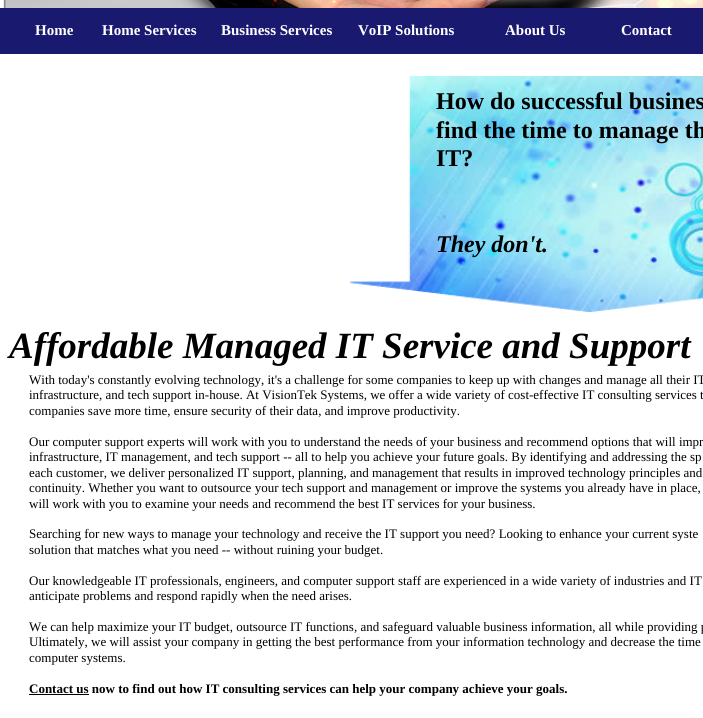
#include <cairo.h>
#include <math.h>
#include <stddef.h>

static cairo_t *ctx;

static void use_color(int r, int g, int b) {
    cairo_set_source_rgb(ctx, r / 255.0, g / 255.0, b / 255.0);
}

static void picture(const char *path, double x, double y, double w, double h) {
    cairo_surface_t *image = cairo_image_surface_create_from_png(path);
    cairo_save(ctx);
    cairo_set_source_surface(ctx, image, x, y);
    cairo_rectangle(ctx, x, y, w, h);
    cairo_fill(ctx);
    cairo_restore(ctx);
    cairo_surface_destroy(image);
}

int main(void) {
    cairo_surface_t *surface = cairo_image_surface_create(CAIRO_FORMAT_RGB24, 703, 718);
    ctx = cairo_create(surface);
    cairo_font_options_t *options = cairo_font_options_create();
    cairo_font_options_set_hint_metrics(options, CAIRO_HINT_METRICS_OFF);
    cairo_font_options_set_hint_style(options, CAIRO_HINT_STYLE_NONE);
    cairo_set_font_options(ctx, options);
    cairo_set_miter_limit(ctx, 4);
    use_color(255, 255, 255);
    cairo_paint(ctx);
    picture("img1.png", 3, 0, 700, 8);
    use_color(25, 25, 112);
    cairo_rectangle(ctx, 0, 8, 703, 46);
    cairo_fill(ctx);
    cairo_select_font_face(ctx, "Liberation Serif", CAIRO_FONT_SLANT_NORMAL, CAIRO_FONT_WEIGHT_BOLD);
    cairo_set_font_size(ctx, 15);
    use_color(255, 255, 255);
    cairo_move_to(ctx, 35, 35);
    cairo_show_text(ctx, "Home");
    cairo_move_to(ctx, 102, 35);
    cairo_show_text(ctx, "Home Services");
    cairo_move_to(ctx, 221, 35);
    cairo_show_text(ctx, "Business Services");
    cairo_move_to(ctx, 358, 35);
    cairo_show_text(ctx, "VoIP Solutions");
    cairo_move_to(ctx, 505, 35);
    cairo_show_text(ctx, "About Us");
    cairo_move_to(ctx, 621, 35);
    cairo_show_text(ctx, "Contact");
    picture("img2.png", 350, 76, 353, 236);
    cairo_set_font_size(ctx, 24);
    use_color(0, 0, 0);
    cairo_move_to(ctx, 436, 109);
    cairo_show_text(ctx, "How do successful busines");
    cairo_move_to(ctx, 436, 138);
    cairo_show_text(ctx, "find the time to manage th");
    cairo_move_to(ctx, 436, 166);
    cairo_show_text(ctx, "IT?");
    cairo_select_font_face(ctx, "Liberation Serif", CAIRO_FONT_SLANT_ITALIC, CAIRO_FONT_WEIGHT_BOLD);
    cairo_move_to(ctx, 436, 252);
    cairo_show_text(ctx, "They don't.");
    cairo_set_font_size(ctx, 37);
    cairo_move_to(ctx, 9, 358);
    cairo_show_text(ctx, "Affordable Managed IT Service and Support");
    cairo_select_font_face(ctx, "Liberation Serif", CAIRO_FONT_SLANT_NORMAL, CAIRO_FONT_WEIGHT_NORMAL);
    cairo_set_font_size(ctx, 13);
    cairo_move_to(ctx, 29, 384);
    cairo_show_text(ctx, "With today's constantly evolving technology, it's a challenge for some companies to keep up with changes and manage all their IT");
    cairo_move_to(ctx, 29, 399);
    cairo_show_text(ctx, "infrastructure, and tech support in-house. At VisionTek Systems, we offer a wide variety of cost-effective IT consulting services t");
    cairo_move_to(ctx, 29, 415);
    cairo_show_text(ctx, "companies save more time, ensure security of their data, and improve productivity.");
    cairo_move_to(ctx, 29, 446);
    cairo_show_text(ctx, "Our computer support experts will work with you to understand the needs of your business and recommend options that will impr");
    cairo_move_to(ctx, 29, 461);
    cairo_show_text(ctx, "infrastructure, IT management, and tech support -- all to help you achieve your future goals. By identifying and addressing the sp");
    cairo_move_to(ctx, 29, 477);
    cairo_show_text(ctx, "each customer, we deliver personalized IT support, planning, and management that results in improved technology principles and");
    cairo_move_to(ctx, 29, 492);
    cairo_show_text(ctx, "continuity. Whether you want to outsource your tech support and management or improve the systems you already have in place,");
    cairo_move_to(ctx, 29, 508);
    cairo_show_text(ctx, "will work with you to examine your needs and recommend the best IT services for your business.");
    cairo_move_to(ctx, 29, 538);
    cairo_show_text(ctx, "Searching for new ways to manage your technology and receive the IT support you need? Looking to enhance your current syste");
    cairo_move_to(ctx, 29, 554);
    cairo_show_text(ctx, "solution that matches what you need -- without ruining your budget.");
    cairo_move_to(ctx, 29, 585);
    cairo_show_text(ctx, "Our knowledgeable IT professionals, engineers, and computer support staff are experienced in a wide variety of industries and IT");
    cairo_move_to(ctx, 29, 600);
    cairo_show_text(ctx, "anticipate problems and respond rapidly when the need arises.");
    cairo_move_to(ctx, 29, 631);
    cairo_show_text(ctx, "We can help maximize your IT budget, outsource IT functions, and safeguard valuable business information, all while providing p");
    cairo_move_to(ctx, 29, 646);
    cairo_show_text(ctx, "Ultimately, we will assist your company in getting the best performance from your information technology and decrease the time");
    cairo_move_to(ctx, 29, 662);
    cairo_show_text(ctx, "computer systems.");
    cairo_rectangle(ctx, 29, 694, 60, 1);
    cairo_fill(ctx);
    cairo_select_font_face(ctx, "Liberation Serif", CAIRO_FONT_SLANT_NORMAL, CAIRO_FONT_WEIGHT_BOLD);
    cairo_move_to(ctx, 29, 693);
    cairo_show_text(ctx, "Contact us now to find out how IT consulting services can help your company achieve your goals.");
    cairo_surface_write_to_png(surface, "result.png");
    cairo_font_options_destroy(options);
    cairo_destroy(ctx);
    cairo_surface_destroy(surface);
    return 0;
}
